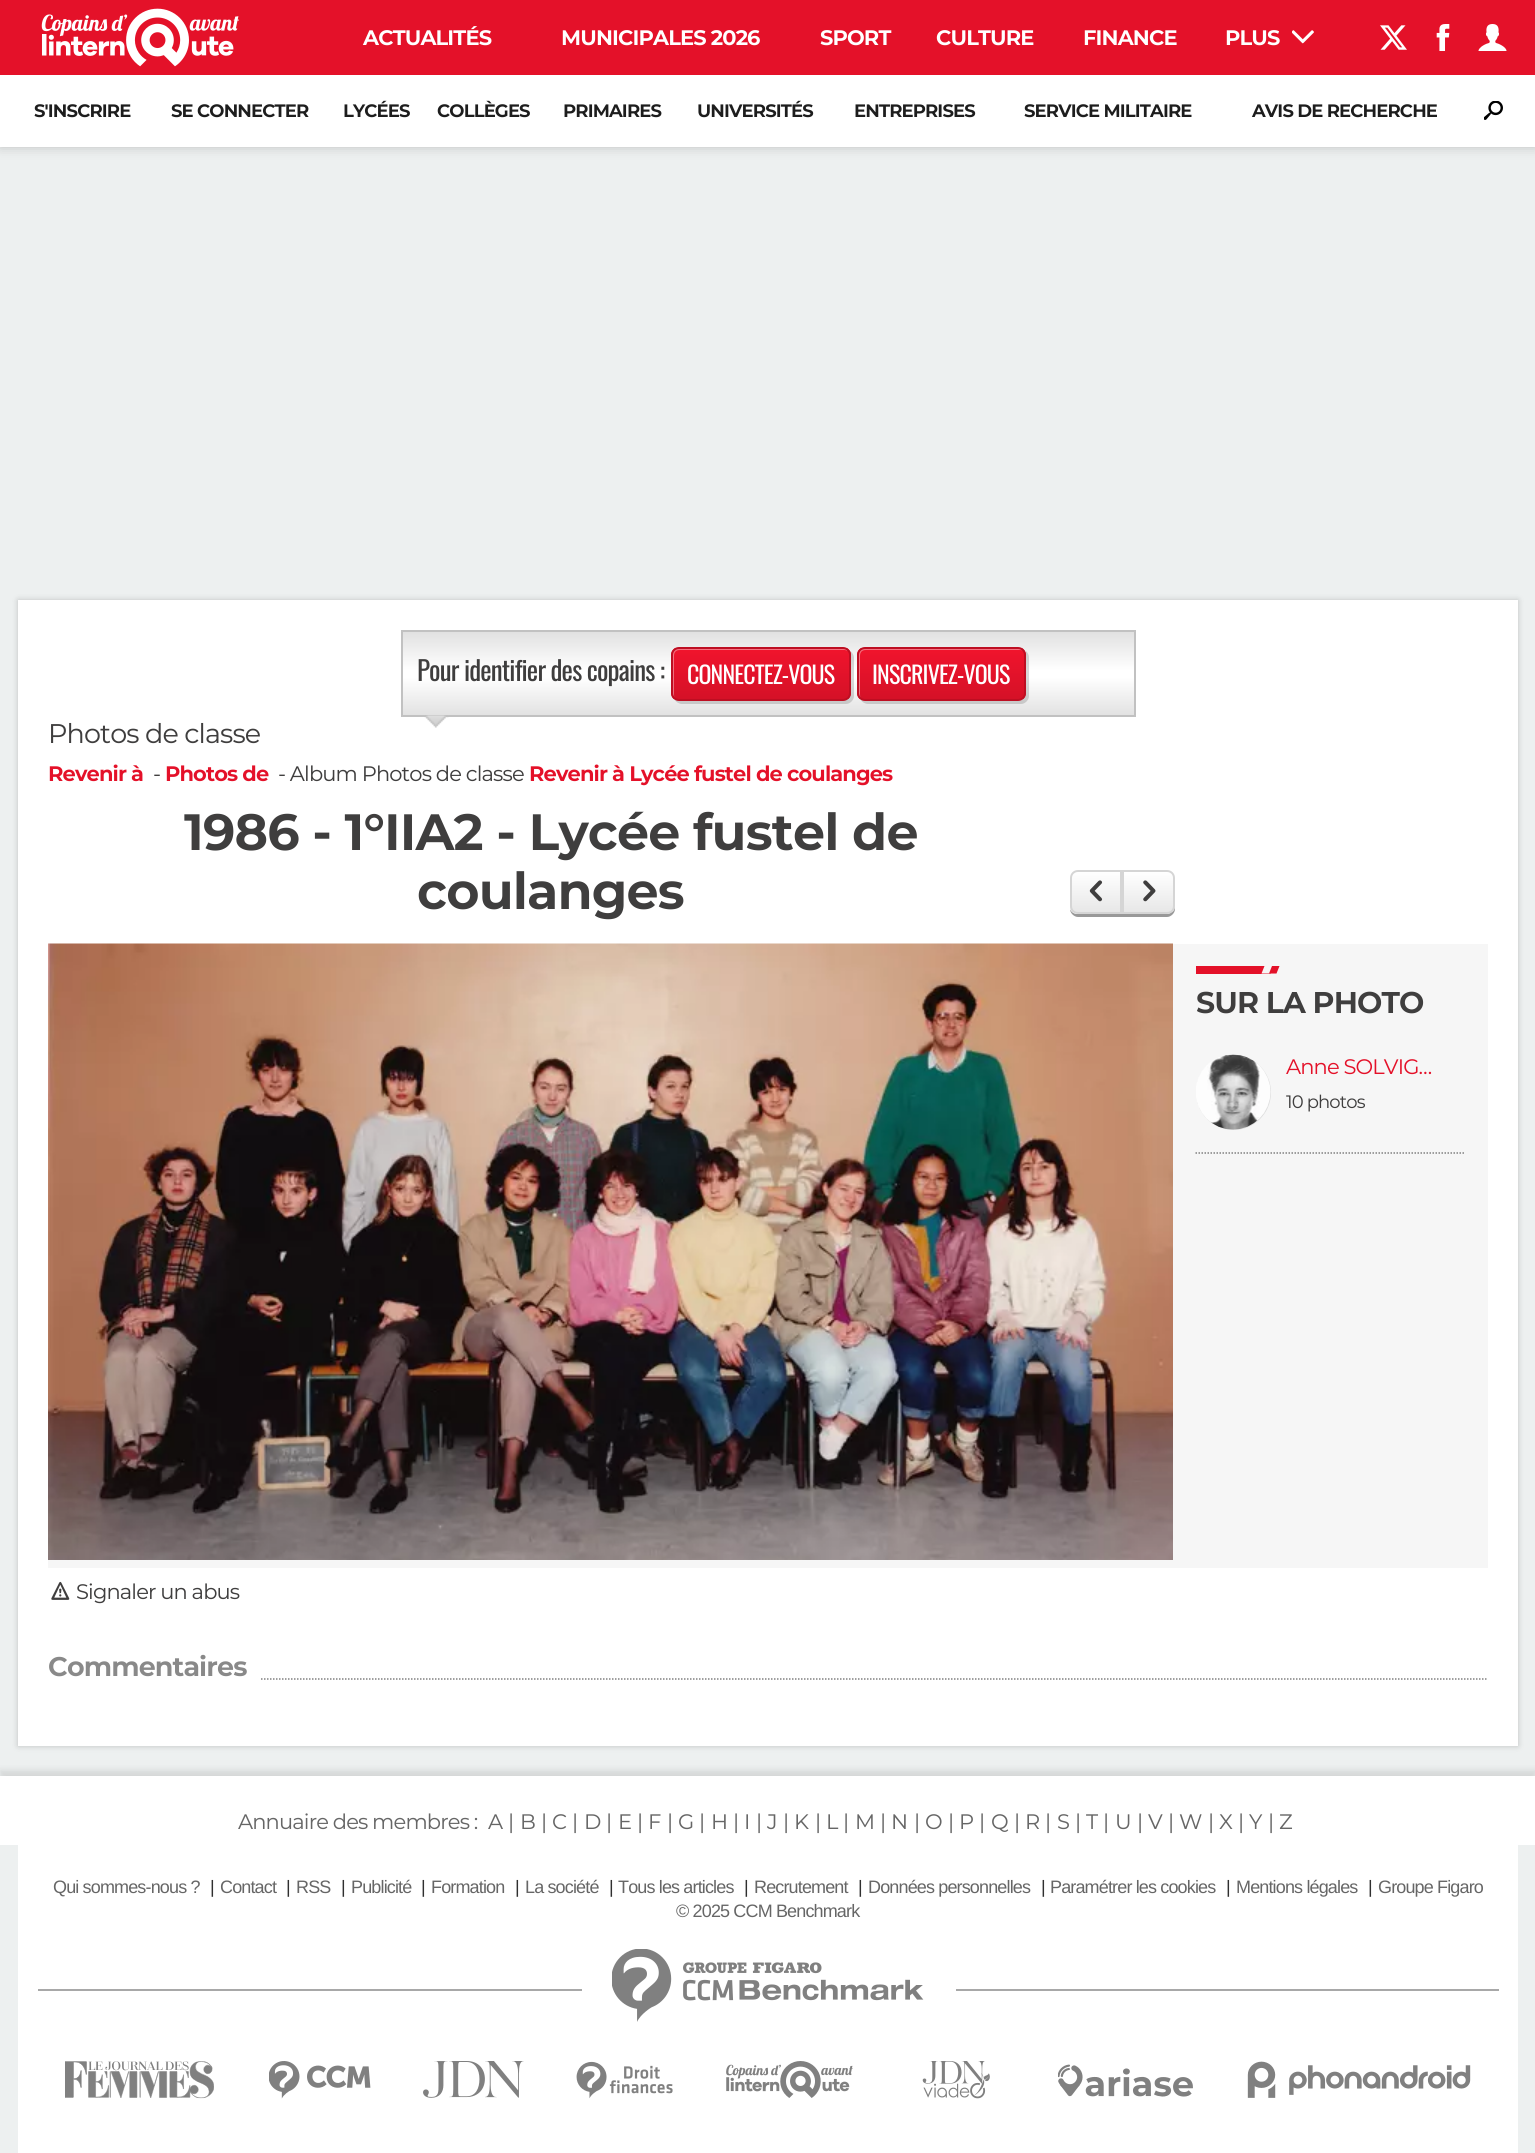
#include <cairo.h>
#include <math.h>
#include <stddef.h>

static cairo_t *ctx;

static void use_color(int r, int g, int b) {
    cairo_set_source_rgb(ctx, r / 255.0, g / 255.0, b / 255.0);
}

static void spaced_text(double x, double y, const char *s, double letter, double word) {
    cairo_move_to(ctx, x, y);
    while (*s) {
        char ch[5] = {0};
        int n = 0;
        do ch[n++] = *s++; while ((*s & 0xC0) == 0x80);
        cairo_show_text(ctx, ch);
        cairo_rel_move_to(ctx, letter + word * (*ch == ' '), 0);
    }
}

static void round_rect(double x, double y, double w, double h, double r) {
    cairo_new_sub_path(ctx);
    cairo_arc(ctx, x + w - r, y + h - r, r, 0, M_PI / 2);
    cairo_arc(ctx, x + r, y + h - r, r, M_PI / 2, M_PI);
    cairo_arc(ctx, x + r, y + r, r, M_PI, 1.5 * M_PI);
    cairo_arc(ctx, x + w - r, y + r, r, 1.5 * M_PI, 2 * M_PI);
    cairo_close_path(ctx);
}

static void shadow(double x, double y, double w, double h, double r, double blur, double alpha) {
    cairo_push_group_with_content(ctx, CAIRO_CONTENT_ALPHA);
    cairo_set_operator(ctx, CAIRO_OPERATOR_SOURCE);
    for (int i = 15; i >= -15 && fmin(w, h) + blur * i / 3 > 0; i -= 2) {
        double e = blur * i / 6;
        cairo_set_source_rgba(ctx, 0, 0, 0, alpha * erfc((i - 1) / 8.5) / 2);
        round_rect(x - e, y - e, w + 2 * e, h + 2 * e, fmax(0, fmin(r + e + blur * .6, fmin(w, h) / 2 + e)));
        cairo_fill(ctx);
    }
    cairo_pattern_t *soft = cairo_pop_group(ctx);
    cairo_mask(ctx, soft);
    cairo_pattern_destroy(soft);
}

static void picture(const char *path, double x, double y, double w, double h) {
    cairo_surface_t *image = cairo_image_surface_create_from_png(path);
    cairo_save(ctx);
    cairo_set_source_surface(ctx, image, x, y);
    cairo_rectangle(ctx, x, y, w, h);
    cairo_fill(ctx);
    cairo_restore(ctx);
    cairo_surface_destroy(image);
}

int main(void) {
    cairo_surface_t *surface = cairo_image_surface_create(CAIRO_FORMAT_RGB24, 1535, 2153);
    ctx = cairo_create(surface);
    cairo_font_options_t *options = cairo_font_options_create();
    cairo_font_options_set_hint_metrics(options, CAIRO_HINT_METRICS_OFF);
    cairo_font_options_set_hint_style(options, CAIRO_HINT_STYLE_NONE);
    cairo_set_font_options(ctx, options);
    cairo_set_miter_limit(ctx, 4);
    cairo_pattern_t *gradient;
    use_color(237, 240, 240);
    cairo_paint(ctx);
    use_color(0, 0, 0);
    shadow(0, 0, 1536, 147, 0, 6, 0.2);
    use_color(228, 17, 41);
    cairo_rectangle(ctx, 0, 0, 1535, 75);
    cairo_fill(ctx);
    picture("img1.png", 41, 8, 198, 59);
    cairo_select_font_face(ctx, "Montserrat", CAIRO_FONT_SLANT_NORMAL, CAIRO_FONT_WEIGHT_BOLD);
    cairo_set_font_size(ctx, 21);
    use_color(255, 255, 255);
    spaced_text(363, 45, "ACTUALITÉS", -0.85, 0);
    spaced_text(561, 45, "MUNICIPALES 2026", -0.85, 0);
    spaced_text(820, 45, "SPORT", -0.85, 0);
    spaced_text(936, 45, "CULTURE", -0.85, 0);
    spaced_text(1083, 45, "FINANCE", -0.85, 0);
    spaced_text(1225, 45, "PLUS", -0.85, 0);
    picture("img2.png", 1292, 30, 22, 14);
    picture("img3.png", 1380, 25, 27, 25);
    picture("img4.png", 1436, 24, 14, 27);
    picture("img5.png", 1478, 24, 29, 27);
    cairo_rectangle(ctx, 0, 75, 1535, 72);
    cairo_fill(ctx);
    cairo_set_font_size(ctx, 18);
    use_color(29, 29, 29);
    spaced_text(34, 117, "S'INSCRIRE", -0.85, 0);
    spaced_text(171, 117, "SE CONNECTER", -0.85, 0);
    spaced_text(343, 117, "LYCÉES", -0.85, 0);
    spaced_text(437, 117, "COLLÈGES", -0.85, 0);
    spaced_text(563, 117, "PRIMAIRES", -0.85, 0);
    spaced_text(697, 117, "UNIVERSITÉS", -0.85, 0);
    spaced_text(854, 117, "ENTREPRISES", -0.85, 0);
    spaced_text(1024, 117, "SERVICE MILITAIRE", -0.85, 0);
    spaced_text(1252, 117, "AVIS DE RECHERCHE", -0.85, 0);
    picture("img6.png", 1484, 101, 19, 19);
    use_color(0, 0, 0);
    shadow(18, 600, 1500, 1146, 0, 3, 0.2);
    use_color(255, 255, 255);
    cairo_rectangle(ctx, 18, 600, 1500, 1146);
    cairo_fill(ctx);
    gradient = cairo_pattern_create_linear(768, 632, 768, 716);
    cairo_pattern_add_color_stop_rgba(gradient, 0, 0.882, 0.882, 0.882, 1);
    cairo_pattern_add_color_stop_rgba(gradient, 0.46, 1, 1, 1, 1);
    cairo_pattern_add_color_stop_rgba(gradient, 0.54, 1, 1, 1, 1);
    cairo_pattern_add_color_stop_rgba(gradient, 1, 0.882, 0.882, 0.882, 1);
    cairo_set_source(ctx, gradient);
    cairo_pattern_destroy(gradient);
    cairo_rectangle(ctx, 403, 632, 731, 83);
    cairo_fill(ctx);
    cairo_rectangle(ctx, 402, 631, 733, 85);
    use_color(193, 193, 193);
    cairo_stroke(ctx);
    cairo_select_font_face(ctx, "Oswald", CAIRO_FONT_SLANT_NORMAL, CAIRO_FONT_WEIGHT_NORMAL);
    cairo_set_font_size(ctx, 27);
    use_color(63, 62, 62);
    spaced_text(417, 681, "Pour identifier des copains :", -0.85, 0);
    cairo_set_source_rgba(ctx, 0, 0, 0, 0.15);
    cairo_new_path(ctx);
    cairo_move_to(ctx, 675, 700);
    cairo_curve_to(ctx, 676, 702, 679, 704, 682, 704);
    cairo_line_to(ctx, 846, 704);
    cairo_curve_to(ctx, 850, 704, 854, 700, 854, 696);
    cairo_line_to(ctx, 854, 658);
    cairo_curve_to(ctx, 854, 655, 852, 652, 850, 651);
    cairo_line_to(ctx, 850, 654);
    cairo_line_to(ctx, 850, 693);
    cairo_curve_to(ctx, 850, 697, 847, 700, 843, 700);
    cairo_line_to(ctx, 678, 700);
    cairo_close_path(ctx);
    cairo_fill(ctx);
    cairo_save(ctx);
    round_rect(671, 647, 180, 54, 8);
    cairo_clip(ctx);
    gradient = cairo_pattern_create_linear(761, 648, 761, 699);
    cairo_pattern_add_color_stop_rgba(gradient, 0, 0.945, 0.078, 0.176, 1);
    cairo_pattern_add_color_stop_rgba(gradient, 1, 0.835, 0.067, 0.153, 1);
    cairo_set_source(ctx, gradient);
    cairo_pattern_destroy(gradient);
    cairo_rectangle(ctx, 671, 648, 180, 51);
    cairo_fill(ctx);
    cairo_restore(ctx);
    cairo_set_source_rgba(ctx, 1, 1, 1, 0.4);
    cairo_new_path(ctx);
    cairo_move_to(ctx, 680, 650);
    cairo_line_to(ctx, 845, 650);
    cairo_line_to(ctx, 848, 651);
    cairo_curve_to(ctx, 847, 649, 845, 648, 843, 648);
    cairo_line_to(ctx, 678, 648);
    cairo_curve_to(ctx, 675, 648, 672, 651, 672, 654);
    cairo_line_to(ctx, 672, 693);
    cairo_curve_to(ctx, 672, 695, 673, 697, 675, 698);
    cairo_curve_to(ctx, 674, 697, 674, 696, 674, 694);
    cairo_line_to(ctx, 674, 656);
    cairo_curve_to(ctx, 674, 652, 676, 650, 680, 650);
    cairo_close_path(ctx);
    cairo_fill(ctx);
    round_rect(672, 648, 178, 52, 7);
    use_color(190, 14, 34);
    cairo_stroke(ctx);
    cairo_set_font_size(ctx, 24);
    use_color(255, 255, 255);
    spaced_text(687, 684, "CONNECTEZ-VOUS", -0.85, 0);
    cairo_set_source_rgba(ctx, 0, 0, 0, 0.15);
    cairo_new_path(ctx);
    cairo_move_to(ctx, 861, 700);
    cairo_curve_to(ctx, 862, 702, 865, 704, 868, 704);
    cairo_line_to(ctx, 1021, 704);
    cairo_curve_to(ctx, 1025, 704, 1029, 700, 1029, 696);
    cairo_line_to(ctx, 1029, 658);
    cairo_curve_to(ctx, 1029, 655, 1028, 653, 1026, 651);
    cairo_line_to(ctx, 1026, 654);
    cairo_line_to(ctx, 1026, 693);
    cairo_curve_to(ctx, 1026, 697, 1023, 700, 1018, 700);
    cairo_line_to(ctx, 864, 700);
    cairo_close_path(ctx);
    cairo_fill(ctx);
    cairo_save(ctx);
    round_rect(857, 647, 169, 54, 8);
    cairo_clip(ctx);
    gradient = cairo_pattern_create_linear(941, 648, 941, 699);
    cairo_pattern_add_color_stop_rgba(gradient, 0, 0.945, 0.078, 0.176, 1);
    cairo_pattern_add_color_stop_rgba(gradient, 1, 0.835, 0.067, 0.153, 1);
    cairo_set_source(ctx, gradient);
    cairo_pattern_destroy(gradient);
    cairo_rectangle(ctx, 857, 648, 169, 51);
    cairo_fill(ctx);
    cairo_restore(ctx);
    cairo_set_source_rgba(ctx, 1, 1, 1, 0.4);
    cairo_new_path(ctx);
    cairo_move_to(ctx, 866, 650);
    cairo_line_to(ctx, 1020, 650);
    cairo_curve_to(ctx, 1022, 650, 1024, 651, 1025, 652);
    cairo_curve_to(ctx, 1024, 650, 1022, 648, 1019, 648);
    cairo_line_to(ctx, 864, 648);
    cairo_curve_to(ctx, 861, 648, 858, 651, 858, 654);
    cairo_line_to(ctx, 858, 693);
    cairo_curve_to(ctx, 858, 695, 859, 697, 861, 698);
    cairo_curve_to(ctx, 860, 697, 860, 696, 860, 694);
    cairo_line_to(ctx, 860, 656);
    cairo_curve_to(ctx, 860, 652, 862, 650, 866, 650);
    cairo_close_path(ctx);
    cairo_fill(ctx);
    round_rect(858, 648, 167, 52, 7);
    use_color(190, 14, 34);
    cairo_stroke(ctx);
    use_color(255, 255, 255);
    spaced_text(872, 684, "INSCRIVEZ-VOUS", -0.85, 0);
    picture("img7.png", 424, 715, 25, 13);
    cairo_select_font_face(ctx, "Montserrat", CAIRO_FONT_SLANT_NORMAL, CAIRO_FONT_WEIGHT_NORMAL);
    cairo_set_font_size(ctx, 27);
    use_color(63, 62, 62);
    spaced_text(48, 743, "Photos de classe", -0.85, 0);
    cairo_select_font_face(ctx, "Montserrat", CAIRO_FONT_SLANT_NORMAL, CAIRO_FONT_WEIGHT_BOLD);
    cairo_set_font_size(ctx, 21);
    use_color(228, 17, 41);
    spaced_text(48, 781, "Revenir à", -0.85, 0);
    cairo_select_font_face(ctx, "Montserrat", CAIRO_FONT_SLANT_NORMAL, CAIRO_FONT_WEIGHT_NORMAL);
    use_color(63, 62, 62);
    spaced_text(153, 781, "-", -0.85, 0);
    cairo_select_font_face(ctx, "Montserrat", CAIRO_FONT_SLANT_NORMAL, CAIRO_FONT_WEIGHT_BOLD);
    use_color(228, 17, 41);
    spaced_text(165, 781, "Photos de", -0.85, 0);
    cairo_select_font_face(ctx, "Montserrat", CAIRO_FONT_SLANT_NORMAL, CAIRO_FONT_WEIGHT_NORMAL);
    use_color(63, 62, 62);
    spaced_text(278, 781, "- Album Photos de classe", -0.85, 0);
    cairo_select_font_face(ctx, "Montserrat", CAIRO_FONT_SLANT_NORMAL, CAIRO_FONT_WEIGHT_BOLD);
    use_color(228, 17, 41);
    spaced_text(529, 781, "Revenir à Lycée fustel de coulanges", -0.85, 0);
    cairo_set_font_size(ctx, 51);
    use_color(63, 62, 62);
    spaced_text(184, 850, "1986 - 1°IIA2 - Lycée fustel de", -0.85, 0);
    spaced_text(417, 909, "coulanges", -0.85, 0);
    use_color(246, 246, 246);
    cairo_rectangle(ctx, 48, 944, 1440, 624);
    cairo_fill(ctx);
    use_color(153, 153, 153);
    cairo_new_path(ctx);
    cairo_move_to(ctx, 1070, 909);
    cairo_curve_to(ctx, 1070, 913, 1074, 917, 1078, 917);
    cairo_line_to(ctx, 1122, 917);
    cairo_line_to(ctx, 1122, 914);
    cairo_line_to(ctx, 1077, 914);
    cairo_curve_to(ctx, 1074, 914, 1071, 912, 1070, 909);
    cairo_close_path(ctx);
    cairo_fill(ctx);
    cairo_save(ctx);
    cairo_new_path(ctx);
    cairo_move_to(ctx, 1078, 870);
    cairo_line_to(ctx, 1122, 870);
    cairo_line_to(ctx, 1122, 914);
    cairo_line_to(ctx, 1078, 914);
    cairo_curve_to(ctx, 1073.5, 914, 1070, 910.5, 1070, 906);
    cairo_line_to(ctx, 1070, 878);
    cairo_curve_to(ctx, 1070, 873.5, 1073.5, 870, 1078, 870);
    cairo_close_path(ctx);
    cairo_clip(ctx);
    gradient = cairo_pattern_create_linear(1096, 872, 1096, 912);
    cairo_pattern_add_color_stop_rgba(gradient, 0, 1, 1, 1, 1);
    cairo_pattern_add_color_stop_rgba(gradient, 1, 0.906, 0.906, 0.906, 1);
    cairo_set_source(ctx, gradient);
    cairo_pattern_destroy(gradient);
    cairo_rectangle(ctx, 1070, 872, 50, 40);
    cairo_fill(ctx);
    cairo_restore(ctx);
    cairo_new_path(ctx);
    cairo_move_to(ctx, 1078, 871);
    cairo_line_to(ctx, 1121, 871);
    cairo_line_to(ctx, 1121, 913);
    cairo_line_to(ctx, 1078, 913);
    cairo_curve_to(ctx, 1074, 913, 1071, 910, 1071, 906);
    cairo_line_to(ctx, 1071, 878);
    cairo_curve_to(ctx, 1071, 874, 1074, 871, 1078, 871);
    cairo_close_path(ctx);
    use_color(213, 213, 213);
    cairo_stroke(ctx);
    cairo_select_font_face(ctx, "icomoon", CAIRO_FONT_SLANT_NORMAL, CAIRO_FONT_WEIGHT_NORMAL);
    cairo_set_font_size(ctx, 36);
    use_color(63, 62, 62);
    spaced_text(1078, 903, "'", -0.85, 0);
    use_color(153, 153, 153);
    cairo_new_path(ctx);
    cairo_move_to(ctx, 1122, 914);
    cairo_line_to(ctx, 1122, 917);
    cairo_line_to(ctx, 1167, 917);
    cairo_curve_to(ctx, 1171, 917, 1175, 913, 1175, 909);
    cairo_line_to(ctx, 1175, 881);
    cairo_line_to(ctx, 1174, 878);
    cairo_line_to(ctx, 1174, 906);
    cairo_curve_to(ctx, 1174, 910, 1171, 914, 1167, 914);
    cairo_close_path(ctx);
    cairo_fill(ctx);
    cairo_save(ctx);
    cairo_new_path(ctx);
    cairo_move_to(ctx, 1122, 870);
    cairo_line_to(ctx, 1167, 870);
    cairo_curve_to(ctx, 1171.5, 870, 1175, 873.5, 1175, 878);
    cairo_line_to(ctx, 1175, 906);
    cairo_curve_to(ctx, 1175, 910.5, 1171.5, 914, 1167, 914);
    cairo_line_to(ctx, 1122, 914);
    cairo_close_path(ctx);
    cairo_clip(ctx);
    gradient = cairo_pattern_create_linear(1148, 872, 1148, 912);
    cairo_pattern_add_color_stop_rgba(gradient, 0, 1, 1, 1, 1);
    cairo_pattern_add_color_stop_rgba(gradient, 1, 0.906, 0.906, 0.906, 1);
    cairo_set_source(ctx, gradient);
    cairo_pattern_destroy(gradient);
    cairo_rectangle(ctx, 1124, 872, 51, 40);
    cairo_fill(ctx);
    cairo_restore(ctx);
    cairo_new_path(ctx);
    cairo_move_to(ctx, 1123, 871);
    cairo_line_to(ctx, 1167, 871);
    cairo_curve_to(ctx, 1171, 871, 1174, 874, 1174, 878);
    cairo_line_to(ctx, 1174, 906);
    cairo_curve_to(ctx, 1174, 910, 1171, 913, 1167, 913);
    cairo_line_to(ctx, 1123, 913);
    cairo_close_path(ctx);
    use_color(213, 213, 213);
    cairo_stroke(ctx);
    use_color(63, 62, 62);
    spaced_text(1130, 903, "#", -0.85, 0);
    picture("img8.png", 48, 943, 1125, 617);
    use_color(228, 17, 41);
    cairo_rectangle(ctx, 1196, 966, 75, 8);
    cairo_fill(ctx);
    use_color(246, 246, 246);
    cairo_new_path(ctx);
    cairo_move_to(ctx, 1264.5, 966);
    cairo_line_to(ctx, 1279.5, 966);
    cairo_line_to(ctx, 1276.5, 973.5);
    cairo_line_to(ctx, 1261.5, 973.5);
    cairo_close_path(ctx);
    cairo_fill(ctx);
    use_color(228, 17, 41);
    cairo_new_path(ctx);
    cairo_move_to(ctx, 1272, 966);
    cairo_line_to(ctx, 1279.5, 966);
    cairo_line_to(ctx, 1276.5, 973.5);
    cairo_line_to(ctx, 1269, 973.5);
    cairo_close_path(ctx);
    cairo_fill(ctx);
    cairo_select_font_face(ctx, "Montserrat", CAIRO_FONT_SLANT_NORMAL, CAIRO_FONT_WEIGHT_BOLD);
    cairo_set_font_size(ctx, 30);
    use_color(63, 62, 62);
    spaced_text(1196, 1013, "SUR LA PHOTO", -0.85, 0);
    cairo_new_path(ctx);
    cairo_move_to(ctx, 1195.5, 1153);
    cairo_line_to(ctx, 1465.5, 1153);
    use_color(127, 127, 127);
    cairo_set_line_width(ctx, 1.5);
    cairo_set_dash(ctx, (double[]){1.5, 1.5}, 2, 0);
    cairo_stroke(ctx);
    use_color(221, 221, 221);
    cairo_arc(ctx, 1233.5, 1092.5, 37.5, 0, 2 * M_PI);
    cairo_fill(ctx);
    picture("img9.png", 1196, 1054, 75, 76);
    cairo_select_font_face(ctx, "Montserrat", CAIRO_FONT_SLANT_NORMAL, CAIRO_FONT_WEIGHT_NORMAL);
    cairo_set_font_size(ctx, 21);
    use_color(228, 17, 41);
    spaced_text(1286, 1074, "Anne SOLVIG…", -0.85, 0);
    cairo_set_font_size(ctx, 18);
    use_color(63, 62, 62);
    spaced_text(1286, 1108, "10 photos", -0.85, 0);
    cairo_select_font_face(ctx, "icomoon", CAIRO_FONT_SLANT_NORMAL, CAIRO_FONT_WEIGHT_NORMAL);
    cairo_set_font_size(ctx, 24);
    spaced_text(48, 1599, "1", -0.85, 0);
    cairo_select_font_face(ctx, "Montserrat", CAIRO_FONT_SLANT_NORMAL, CAIRO_FONT_WEIGHT_NORMAL);
    cairo_set_font_size(ctx, 21);
    spaced_text(76, 1599, "Signaler un abus", -0.85, 0);
    cairo_new_path(ctx);
    cairo_move_to(ctx, 48, 1679);
    cairo_line_to(ctx, 1488, 1679);
    use_color(127, 127, 127);
    cairo_stroke(ctx);
    use_color(255, 255, 255);
    cairo_rectangle(ctx, 48, 1678, 212, 2);
    cairo_fill(ctx);
    cairo_select_font_face(ctx, "Montserrat", CAIRO_FONT_SLANT_NORMAL, CAIRO_FONT_WEIGHT_BOLD);
    cairo_set_font_size(ctx, 27);
    use_color(137, 137, 137);
    spaced_text(48, 1676, "Commentaires", -0.85, 0);
    use_color(255, 255, 255);
    cairo_rectangle(ctx, 18, 1845, 1500, 308);
    cairo_fill(ctx);
    use_color(0, 0, 0);
    shadow(0, 1770, 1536, 69, 0, 3, 0.1);
    use_color(255, 255, 255);
    cairo_rectangle(ctx, 0, 1776, 1535, 69);
    cairo_fill(ctx);
    cairo_select_font_face(ctx, "Montserrat", CAIRO_FONT_SLANT_NORMAL, CAIRO_FONT_WEIGHT_NORMAL);
    cairo_set_font_size(ctx, 21);
    use_color(102, 102, 102);
    spaced_text(238, 1829, "Annuaire des membres :", -0.85, 0);
    spaced_text(488, 1829, "A", -0.85, 0);
    spaced_text(508, 1829, "|", -0.85, 0);
    spaced_text(520, 1829, "B", -0.85, 0);
    spaced_text(541, 1829, "|", -0.85, 0);
    spaced_text(552, 1829, "C", -0.85, 0);
    spaced_text(572, 1829, "|", -0.85, 0);
    spaced_text(584, 1829, "D", -0.85, 0);
    spaced_text(606, 1829, "|", -0.85, 0);
    spaced_text(618, 1829, "E", -0.85, 0);
    spaced_text(637, 1829, "|", -0.85, 0);
    spaced_text(648, 1829, "F", -0.85, 0);
    spaced_text(667, 1829, "|", -0.85, 0);
    spaced_text(678, 1829, "G", -0.85, 0);
    spaced_text(699, 1829, "|", -0.85, 0);
    spaced_text(711, 1829, "H", -0.85, 0);
    spaced_text(733, 1829, "|", -0.85, 0);
    spaced_text(744, 1829, "I", -0.85, 0);
    spaced_text(756, 1829, "|", -0.85, 0);
    spaced_text(767, 1829, "J", -0.85, 0);
    spaced_text(783, 1829, "|", -0.85, 0);
    spaced_text(794, 1829, "K", -0.85, 0);
    spaced_text(815, 1829, "|", -0.85, 0);
    spaced_text(826, 1829, "L", -0.85, 0);
    spaced_text(843, 1829, "|", -0.85, 0);
    spaced_text(855, 1829, "M", -0.85, 0);
    spaced_text(880, 1829, "|", -0.85, 0);
    spaced_text(891, 1829, "N", -0.85, 0);
    spaced_text(914, 1829, "|", -0.85, 0);
    spaced_text(925, 1829, "O", -0.85, 0);
    spaced_text(948, 1829, "|", -0.85, 0);
    spaced_text(959, 1829, "P", -0.85, 0);
    spaced_text(979, 1829, "|", -0.85, 0);
    spaced_text(991, 1829, "Q", -0.85, 0);
    spaced_text(1014, 1829, "|", -0.85, 0);
    spaced_text(1025, 1829, "R", -0.85, 0);
    spaced_text(1045, 1829, "|", -0.85, 0);
    spaced_text(1057, 1829, "S", -0.85, 0);
    spaced_text(1075, 1829, "|", -0.85, 0);
    spaced_text(1086, 1829, "T", -0.85, 0);
    spaced_text(1103, 1829, "|", -0.85, 0);
    spaced_text(1115, 1829, "U", -0.85, 0);
    spaced_text(1137, 1829, "|", -0.85, 0);
    spaced_text(1148, 1829, "V", -0.85, 0);
    spaced_text(1168, 1829, "|", -0.85, 0);
    spaced_text(1179, 1829, "W", -0.85, 0);
    spaced_text(1208, 1829, "|", -0.85, 0);
    spaced_text(1219, 1829, "X", -0.85, 0);
    spaced_text(1238, 1829, "|", -0.85, 0);
    spaced_text(1249, 1829, "Y", -0.85, 0);
    spaced_text(1268, 1829, "|", -0.85, 0);
    spaced_text(1279, 1829, "Z", -0.85, 0);
    cairo_select_font_face(ctx, "Liberation Sans", CAIRO_FONT_SLANT_NORMAL, CAIRO_FONT_WEIGHT_NORMAL);
    cairo_set_font_size(ctx, 18);
    spaced_text(53, 1893, "Qui sommes-nous ?", -0.85, 0);
    use_color(48, 48, 48);
    spaced_text(210, 1893, "|", -0.85, 0);
    use_color(102, 102, 102);
    spaced_text(220, 1893, "Contact", -0.85, 0);
    use_color(48, 48, 48);
    spaced_text(286, 1893, "|", -0.85, 0);
    use_color(102, 102, 102);
    spaced_text(296, 1893, "RSS", -0.85, 0);
    use_color(48, 48, 48);
    spaced_text(341, 1893, "|", -0.85, 0);
    use_color(102, 102, 102);
    spaced_text(351, 1893, "Publicité", -0.85, 0);
    use_color(48, 48, 48);
    spaced_text(421, 1893, "|", -0.85, 0);
    use_color(102, 102, 102);
    spaced_text(431, 1893, "Formation", -0.85, 0);
    use_color(48, 48, 48);
    spaced_text(515, 1893, "|", -0.85, 0);
    use_color(102, 102, 102);
    spaced_text(525, 1893, "La société", -0.85, 0);
    use_color(48, 48, 48);
    spaced_text(609, 1893, "|", -0.85, 0);
    use_color(102, 102, 102);
    spaced_text(618, 1893, "Tous les articles", -0.85, 0);
    use_color(48, 48, 48);
    spaced_text(744, 1893, "|", -0.85, 0);
    use_color(102, 102, 102);
    spaced_text(754, 1893, "Recrutement", -0.85, 0);
    use_color(48, 48, 48);
    spaced_text(858, 1893, "|", -0.85, 0);
    use_color(102, 102, 102);
    spaced_text(868, 1893, "Données personnelles", -0.85, 0);
    use_color(48, 48, 48);
    spaced_text(1041, 1893, "|", -0.85, 0);
    use_color(102, 102, 102);
    spaced_text(1050, 1893, "Paramétrer les cookies", -0.85, 0);
    use_color(48, 48, 48);
    spaced_text(1226, 1893, "|", -0.85, 0);
    use_color(102, 102, 102);
    spaced_text(1236, 1893, "Mentions légales", -0.85, 0);
    use_color(48, 48, 48);
    spaced_text(1368, 1893, "|", -0.85, 0);
    use_color(102, 102, 102);
    spaced_text(1378, 1893, "Groupe Figaro", -0.85, 0);
    spaced_text(676, 1917, "© 2025 CCM Benchmark", -0.85, 0);
    use_color(168, 168, 168);
    cairo_rectangle(ctx, 38, 1989, 1461, 2);
    cairo_fill(ctx);
    use_color(255, 255, 255);
    cairo_rectangle(ctx, 582, 1989, 374, 2);
    cairo_fill(ctx);
    picture("img10.png", 612, 1949, 312, 73);
    picture("img11.png", 65, 2061, 149, 38);
    picture("img12.png", 269, 2061, 102, 38);
    picture("img13.png", 423, 2061, 101, 37);
    picture("img14.png", 576, 2061, 97, 38);
    picture("img15.png", 726, 2061, 127, 37);
    picture("img16.png", 922, 2061, 68, 38);
    picture("img17.png", 1058, 2064, 135, 33);
    picture("img18.png", 1247, 2061, 224, 37);
    cairo_surface_write_to_png(surface, "result.png");
    cairo_font_options_destroy(options);
    cairo_destroy(ctx);
    cairo_surface_destroy(surface);
    return 0;
}
